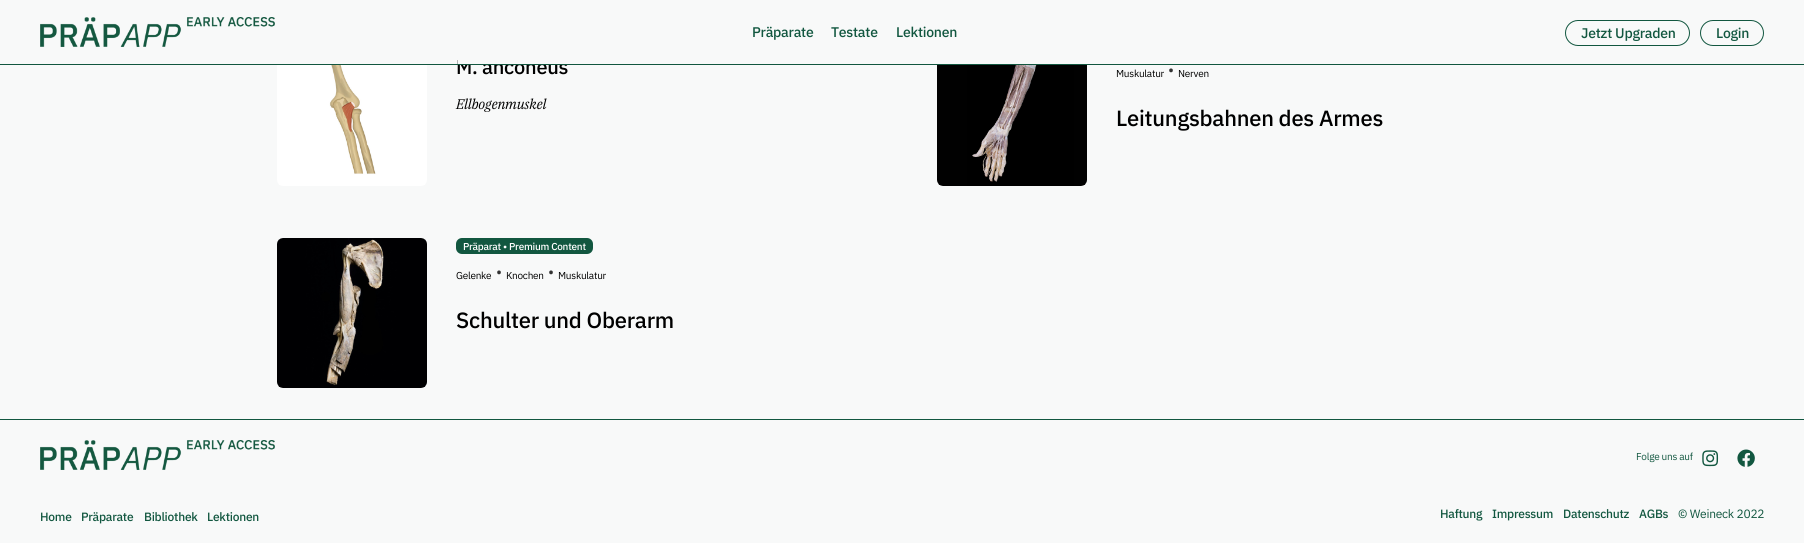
#include <cairo.h>
#include <math.h>
#include <stddef.h>

static cairo_t *ctx;

static void use_color(int r, int g, int b) {
    cairo_set_source_rgb(ctx, r / 255.0, g / 255.0, b / 255.0);
}

static void spaced_text(double x, double y, const char *s, double letter, double word) {
    cairo_move_to(ctx, x, y);
    while (*s) {
        char ch[5] = {0};
        int n = 0;
        do ch[n++] = *s++; while ((*s & 0xC0) == 0x80);
        cairo_show_text(ctx, ch);
        cairo_rel_move_to(ctx, letter + word * (*ch == ' '), 0);
    }
}

static void round_rect(double x, double y, double w, double h, double r) {
    cairo_new_sub_path(ctx);
    cairo_arc(ctx, x + w - r, y + h - r, r, 0, M_PI / 2);
    cairo_arc(ctx, x + r, y + h - r, r, M_PI / 2, M_PI);
    cairo_arc(ctx, x + r, y + r, r, M_PI, 1.5 * M_PI);
    cairo_arc(ctx, x + w - r, y + r, r, 1.5 * M_PI, 2 * M_PI);
    cairo_close_path(ctx);
}

static void picture(const char *path, double x, double y, double w, double h) {
    cairo_surface_t *image = cairo_image_surface_create_from_png(path);
    cairo_save(ctx);
    cairo_set_source_surface(ctx, image, x, y);
    cairo_rectangle(ctx, x, y, w, h);
    cairo_fill(ctx);
    cairo_restore(ctx);
    cairo_surface_destroy(image);
}

int main(void) {
    cairo_surface_t *surface = cairo_image_surface_create(CAIRO_FORMAT_RGB24, 1804, 543);
    ctx = cairo_create(surface);
    cairo_font_options_t *options = cairo_font_options_create();
    cairo_font_options_set_hint_metrics(options, CAIRO_HINT_METRICS_OFF);
    cairo_font_options_set_hint_style(options, CAIRO_HINT_STYLE_NONE);
    cairo_set_font_options(ctx, options);
    cairo_set_miter_limit(ctx, 4);
    use_color(248, 249, 249);
    cairo_paint(ctx);
    cairo_select_font_face(ctx, "IBM Plex Sans Medium", CAIRO_FONT_SLANT_NORMAL, CAIRO_FONT_WEIGHT_NORMAL);
    cairo_set_font_size(ctx, 20);
    use_color(0, 0, 0);
    spaced_text(456, 74, "M. anconeus", -0.25, 0);
    use_color(248, 249, 249);
    cairo_rectangle(ctx, 458, 60, 109, 4);
    cairo_fill(ctx);
    use_color(18, 87, 64);
    cairo_rectangle(ctx, 0, 64, 1804, 1);
    cairo_fill(ctx);
    picture("img1.png", 40, 17, 235, 30);
    cairo_set_font_size(ctx, 14);
    spaced_text(752, 37, "Präparate", -0.25, 0);
    spaced_text(831, 37, "Testate", -0.25, 0);
    spaced_text(896, 37, "Lektionen", -0.25, 0);
    round_rect(1565.5, 20.5, 124, 25, 12.5);
    cairo_set_line_width(ctx, 1);
    cairo_stroke(ctx);
    spaced_text(1581, 38, "Jetzt Upgraden", -0.25, 0);
    round_rect(1700.5, 20.5, 63, 25, 12.5);
    cairo_stroke(ctx);
    spaced_text(1716, 38, "Login", -0.25, 0);
    picture("img2.png", 277, 65, 150, 121);
    cairo_select_font_face(ctx, "IBM Plex Serif", CAIRO_FONT_SLANT_ITALIC, CAIRO_FONT_WEIGHT_NORMAL);
    use_color(0, 0, 0);
    spaced_text(456, 109, "Ellbogenmuskel", -0.25, 0);
    picture("img3.png", 937, 65, 150, 121);
    cairo_select_font_face(ctx, "IBM Plex Sans", CAIRO_FONT_SLANT_NORMAL, CAIRO_FONT_WEIGHT_NORMAL);
    cairo_set_font_size(ctx, 10);
    spaced_text(1116, 77, "Muskulatur", -0.25, 0);
    cairo_select_font_face(ctx, "Roboto", CAIRO_FONT_SLANT_NORMAL, CAIRO_FONT_WEIGHT_NORMAL);
    cairo_set_font_size(ctx, 18);
    use_color(51, 51, 51);
    spaced_text(1168, 77, "•", -0.25, 0);
    cairo_select_font_face(ctx, "IBM Plex Sans", CAIRO_FONT_SLANT_NORMAL, CAIRO_FONT_WEIGHT_NORMAL);
    cairo_set_font_size(ctx, 10);
    use_color(0, 0, 0);
    spaced_text(1178, 77, "Nerven", -0.25, 0);
    cairo_select_font_face(ctx, "IBM Plex Sans Medium", CAIRO_FONT_SLANT_NORMAL, CAIRO_FONT_WEIGHT_NORMAL);
    cairo_set_font_size(ctx, 22);
    spaced_text(1116, 126, "Leitungsbahnen des Armes", -0.25, 0);
    picture("img4.png", 277, 238, 150, 150);
    use_color(18, 87, 64);
    round_rect(456, 238, 137, 16, 6);
    cairo_fill(ctx);
    cairo_set_font_size(ctx, 10);
    use_color(255, 255, 255);
    spaced_text(463, 250, "Präparat • Premium Content", -0.25, 0);
    cairo_select_font_face(ctx, "IBM Plex Sans", CAIRO_FONT_SLANT_NORMAL, CAIRO_FONT_WEIGHT_NORMAL);
    use_color(0, 0, 0);
    spaced_text(456, 279, "Gelenke", -0.25, 0);
    cairo_select_font_face(ctx, "Roboto", CAIRO_FONT_SLANT_NORMAL, CAIRO_FONT_WEIGHT_NORMAL);
    cairo_set_font_size(ctx, 18);
    use_color(51, 51, 51);
    spaced_text(496, 279, "•", -0.25, 0);
    cairo_select_font_face(ctx, "IBM Plex Sans", CAIRO_FONT_SLANT_NORMAL, CAIRO_FONT_WEIGHT_NORMAL);
    cairo_set_font_size(ctx, 10);
    use_color(0, 0, 0);
    spaced_text(506, 279, "Knochen", -0.25, 0);
    cairo_select_font_face(ctx, "Roboto", CAIRO_FONT_SLANT_NORMAL, CAIRO_FONT_WEIGHT_NORMAL);
    cairo_set_font_size(ctx, 18);
    use_color(51, 51, 51);
    spaced_text(548, 279, "•", -0.25, 0);
    cairo_select_font_face(ctx, "IBM Plex Sans", CAIRO_FONT_SLANT_NORMAL, CAIRO_FONT_WEIGHT_NORMAL);
    cairo_set_font_size(ctx, 10);
    use_color(0, 0, 0);
    spaced_text(558, 279, "Muskulatur", -0.25, 0);
    cairo_select_font_face(ctx, "IBM Plex Sans Medium", CAIRO_FONT_SLANT_NORMAL, CAIRO_FONT_WEIGHT_NORMAL);
    cairo_set_font_size(ctx, 22);
    spaced_text(456, 328, "Schulter und Oberarm", -0.25, 0);
    use_color(18, 87, 64);
    cairo_rectangle(ctx, 0, 419, 1804, 1);
    cairo_fill(ctx);
    picture("img5.png", 40, 440, 235, 30);
    cairo_set_font_size(ctx, 12);
    spaced_text(40, 521, "Home", -0.25, 0);
    spaced_text(81, 521, "Präparate", -0.25, 0);
    spaced_text(144, 521, "Bibliothek", -0.25, 0);
    spaced_text(207, 521, "Lektionen", -0.25, 0);
    cairo_select_font_face(ctx, "IBM Plex Sans", CAIRO_FONT_SLANT_NORMAL, CAIRO_FONT_WEIGHT_NORMAL);
    cairo_set_font_size(ctx, 10);
    spaced_text(1636, 460, "Folge uns auf", -0.25, 0);
    picture("img6.png", 1702, 450, 17, 17);
    picture("img7.png", 1737, 449, 18, 18);
    cairo_select_font_face(ctx, "IBM Plex Sans Medium", CAIRO_FONT_SLANT_NORMAL, CAIRO_FONT_WEIGHT_NORMAL);
    cairo_set_font_size(ctx, 12);
    spaced_text(1440, 518, "Haftung", -0.25, 0);
    spaced_text(1492, 518, "Impressum", -0.25, 0);
    spaced_text(1563, 518, "Datenschutz", -0.25, 0);
    spaced_text(1639, 518, "AGBs", -0.25, 0);
    cairo_select_font_face(ctx, "IBM Plex Sans", CAIRO_FONT_SLANT_NORMAL, CAIRO_FONT_WEIGHT_NORMAL);
    spaced_text(1678, 518, "© Weineck 2022", -0.25, 0);
    cairo_surface_write_to_png(surface, "result.png");
    cairo_font_options_destroy(options);
    cairo_destroy(ctx);
    cairo_surface_destroy(surface);
    return 0;
}
